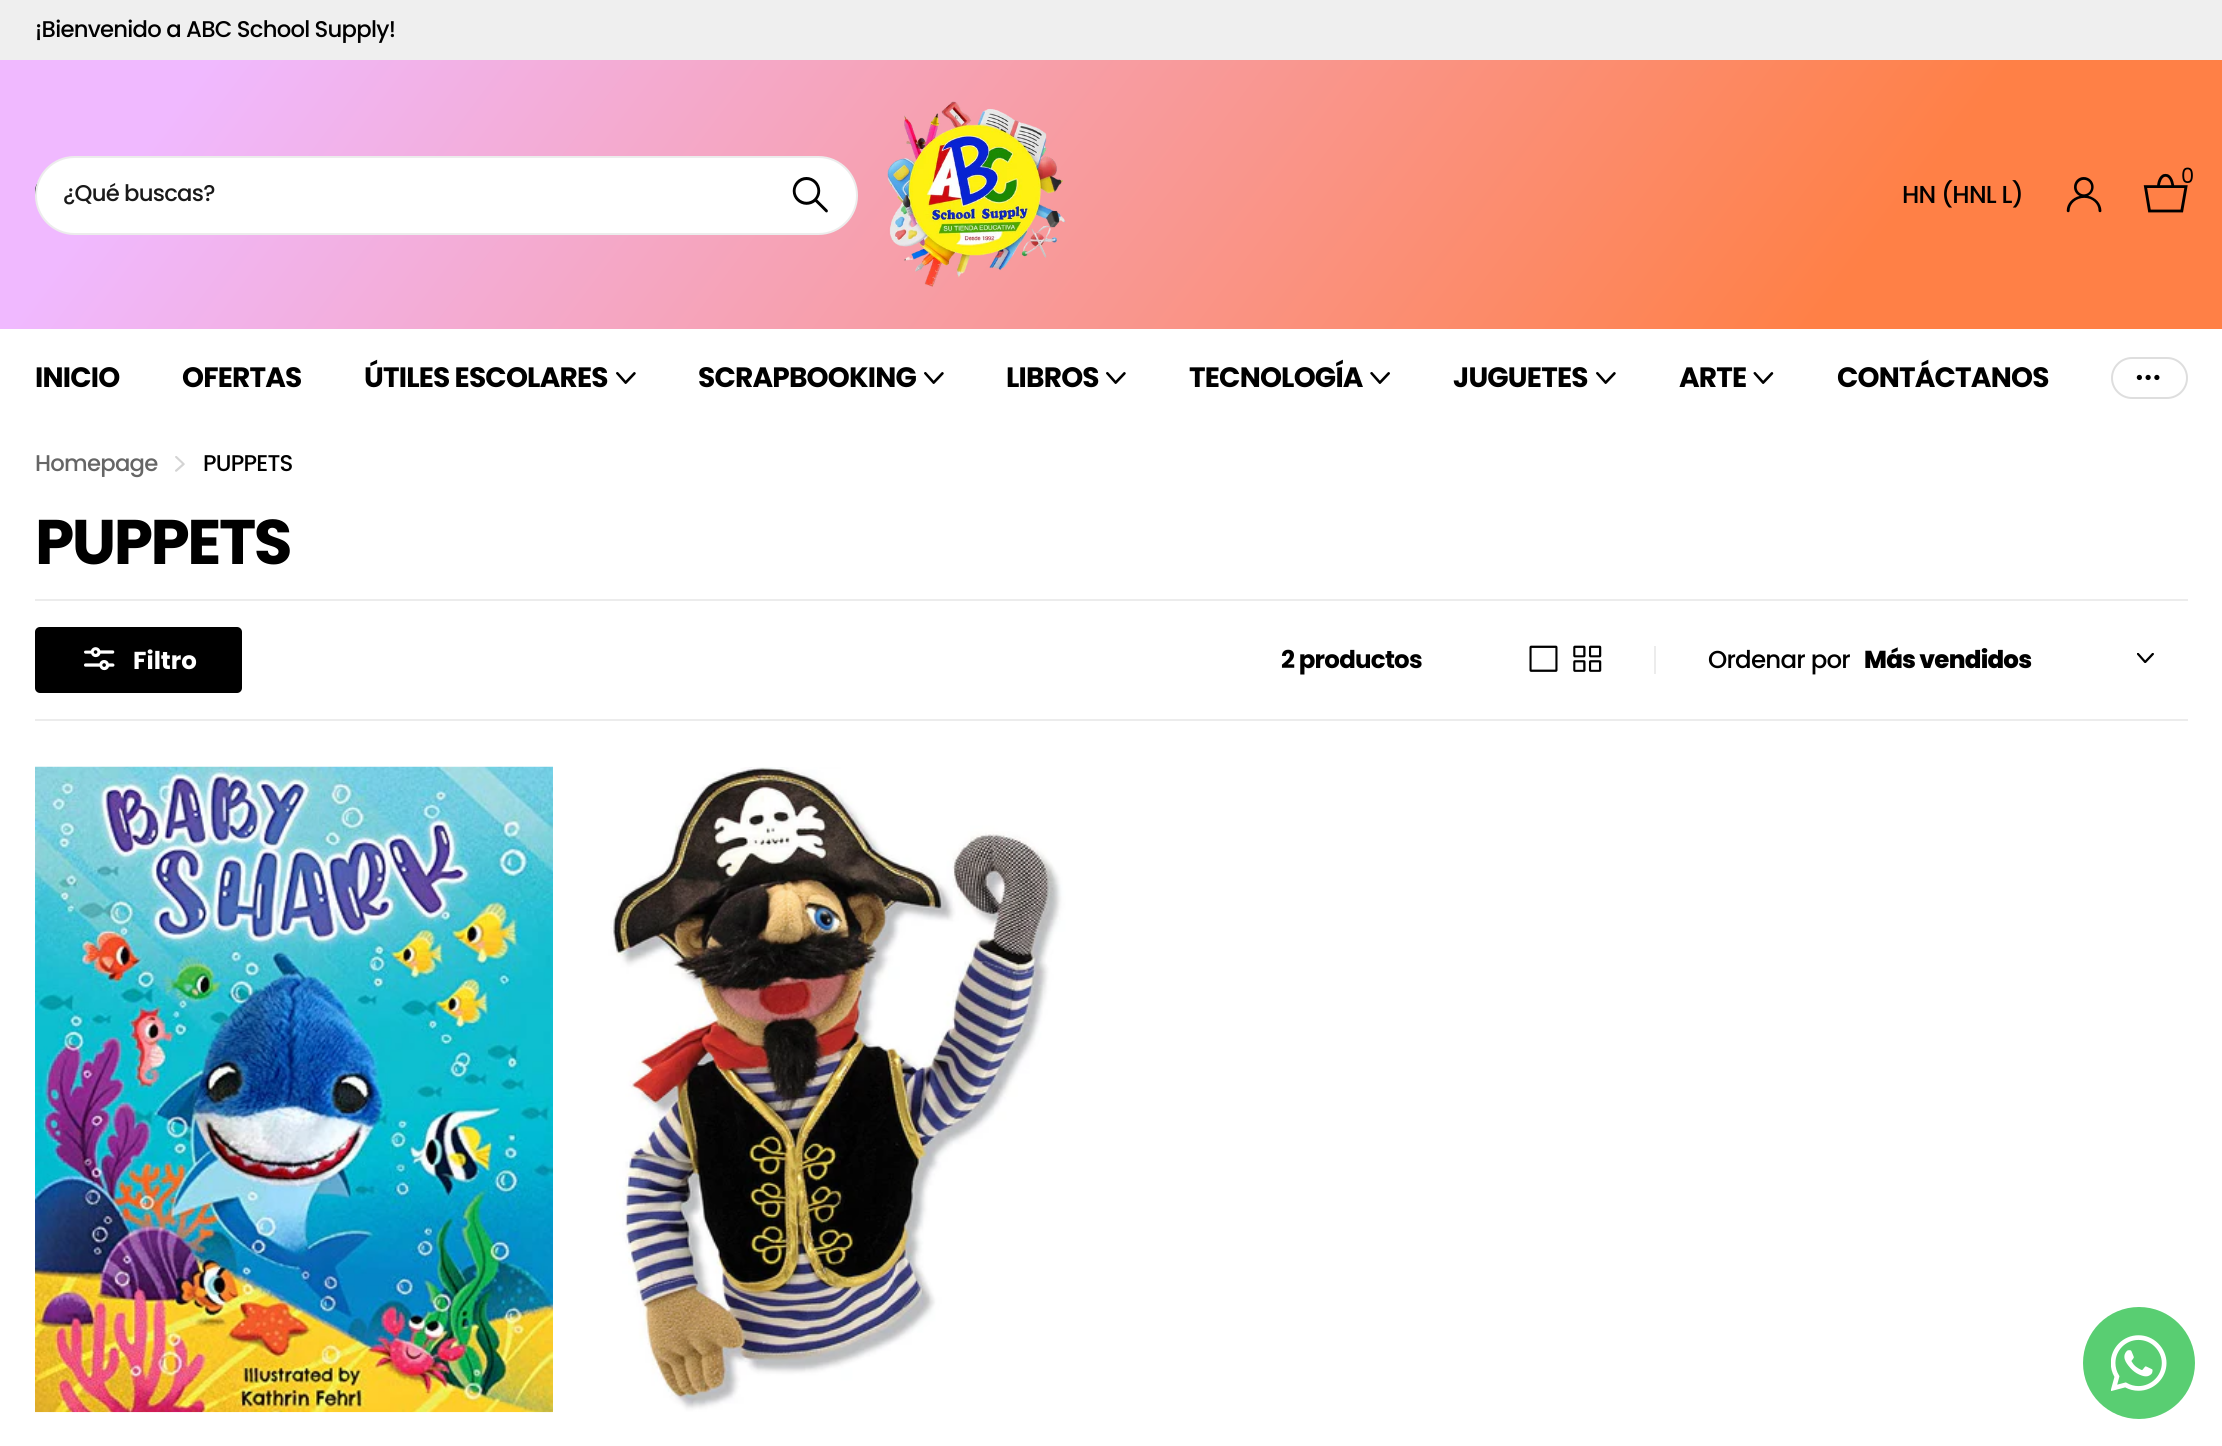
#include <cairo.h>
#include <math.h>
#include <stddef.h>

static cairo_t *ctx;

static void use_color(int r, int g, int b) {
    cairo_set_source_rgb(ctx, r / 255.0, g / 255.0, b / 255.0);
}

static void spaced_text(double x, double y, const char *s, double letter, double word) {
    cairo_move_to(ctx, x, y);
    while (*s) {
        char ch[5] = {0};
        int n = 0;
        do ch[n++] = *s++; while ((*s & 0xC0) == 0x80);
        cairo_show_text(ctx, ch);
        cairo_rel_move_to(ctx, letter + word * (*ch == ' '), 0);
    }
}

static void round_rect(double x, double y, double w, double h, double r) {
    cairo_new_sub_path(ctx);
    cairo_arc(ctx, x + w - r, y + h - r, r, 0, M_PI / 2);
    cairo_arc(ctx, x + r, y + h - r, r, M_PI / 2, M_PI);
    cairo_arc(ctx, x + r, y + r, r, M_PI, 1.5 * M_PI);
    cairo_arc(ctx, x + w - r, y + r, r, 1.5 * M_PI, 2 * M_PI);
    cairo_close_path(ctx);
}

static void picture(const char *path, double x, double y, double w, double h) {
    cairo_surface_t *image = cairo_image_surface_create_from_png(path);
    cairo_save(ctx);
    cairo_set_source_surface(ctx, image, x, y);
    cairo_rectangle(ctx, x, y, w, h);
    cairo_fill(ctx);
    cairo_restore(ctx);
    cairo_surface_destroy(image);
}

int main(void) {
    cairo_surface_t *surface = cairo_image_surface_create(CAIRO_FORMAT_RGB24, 2222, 1446);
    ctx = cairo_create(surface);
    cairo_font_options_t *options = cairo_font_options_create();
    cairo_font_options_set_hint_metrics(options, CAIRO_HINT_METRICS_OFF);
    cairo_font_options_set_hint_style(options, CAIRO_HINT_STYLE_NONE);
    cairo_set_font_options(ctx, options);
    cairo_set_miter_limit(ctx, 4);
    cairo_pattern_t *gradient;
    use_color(255, 255, 255);
    cairo_paint(ctx);
    use_color(239, 239, 239);
    cairo_rectangle(ctx, 0, 0, 2222, 60);
    cairo_fill(ctx);
    cairo_select_font_face(ctx, "Poppins Medium", CAIRO_FONT_SLANT_NORMAL, CAIRO_FONT_WEIGHT_NORMAL);
    cairo_set_font_size(ctx, 22.75);
    use_color(0, 0, 0);
    spaced_text(35, 37, "¡Bienvenido a ABC School Supply!", -0.75, 0);
    gradient = cairo_pattern_create_linear(301, -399, 1922, 823);
    cairo_pattern_add_color_stop_rgba(gradient, 0.1, 0.941, 0.725, 1, 1);
    cairo_pattern_add_color_stop_rgba(gradient, 0.81, 1, 0.502, 0.275, 1);
    cairo_set_source(ctx, gradient);
    cairo_pattern_destroy(gradient);
    cairo_rectangle(ctx, 0, 60, 2222, 269);
    cairo_fill(ctx);
    picture("img1.png", 35, 182, 3, 14);
    use_color(255, 255, 255);
    round_rect(36, 157, 821, 77, 38.5);
    cairo_fill_preserve(ctx);
    use_color(236, 236, 236);
    cairo_stroke(ctx);
    use_color(26, 26, 26);
    spaced_text(63, 201, "¿Qué buscas?", -0.75, 0);
    picture("img2.png", 792, 177, 36, 36);
    picture("img3.png", 887, 101, 179, 186);
    picture("img4.png", 2143, 173, 45, 40);
    cairo_select_font_face(ctx, "Poppins", CAIRO_FONT_SLANT_NORMAL, CAIRO_FONT_WEIGHT_NORMAL);
    cairo_set_font_size(ctx, 21);
    use_color(0, 0, 0);
    spaced_text(2181, 183, "0", -1, 0);
    cairo_select_font_face(ctx, "Poppins Medium", CAIRO_FONT_SLANT_NORMAL, CAIRO_FONT_WEIGHT_NORMAL);
    cairo_set_font_size(ctx, 24.5);
    spaced_text(1902, 203, "HN (HNL L)", -0.75, 0);
    picture("img5.png", 2066, 177, 36, 36);
    cairo_select_font_face(ctx, "Poppins", CAIRO_FONT_SLANT_NORMAL, CAIRO_FONT_WEIGHT_BOLD);
    cairo_set_font_size(ctx, 28);
    spaced_text(35, 387, "INICIO", -0.8, 0);
    spaced_text(182, 387, "OFERTAS", -0.8, 0);
    spaced_text(364, 387, "ÚTILES ESCOLARES", -0.8, 0);
    picture("img6.png", 616, 372, 20, 12);
    spaced_text(698, 387, "SCRAPBOOKING", -0.8, 0);
    picture("img6.png", 924, 372, 20, 12);
    spaced_text(1006, 387, "LIBROS", -0.8, 0);
    picture("img6.png", 1106, 372, 20, 12);
    spaced_text(1189, 387, "TECNOLOGÍA", -0.8, 0);
    picture("img7.png", 1370, 372, 20, 12);
    spaced_text(1453, 387, "JUGUETES", -0.8, 0);
    picture("img6.png", 1596, 372, 20, 12);
    spaced_text(1679, 387, "ARTE", -0.8, 0);
    picture("img8.png", 1753, 372, 21, 12);
    spaced_text(1837, 387, "CONTÁCTANOS", -0.8, 0);
    round_rect(2112, 358, 75, 40, 20);
    use_color(222, 222, 222);
    cairo_stroke(ctx);
    picture("img9.png", 2136, 374, 24, 7);
    cairo_select_font_face(ctx, "Poppins Medium", CAIRO_FONT_SLANT_NORMAL, CAIRO_FONT_WEIGHT_NORMAL);
    cairo_set_font_size(ctx, 22.75);
    use_color(102, 102, 102);
    spaced_text(35, 471, "Homepage", -0.75, 0);
    picture("img10.png", 175, 456, 10, 16);
    use_color(0, 0, 0);
    spaced_text(203, 471, "PUPPETS", -0.75, 0);
    cairo_select_font_face(ctx, "Poppins", CAIRO_FONT_SLANT_NORMAL, CAIRO_FONT_WEIGHT_BOLD);
    cairo_set_font_size(ctx, 63);
    spaced_text(35, 564, "PUPPETS", -2.5, 0);
    use_color(236, 236, 236);
    cairo_rectangle(ctx, 35, 599, 2153, 2);
    cairo_fill(ctx);
    cairo_rectangle(ctx, 35, 719, 2153, 2);
    cairo_fill(ctx);
    use_color(0, 0, 0);
    round_rect(35, 627, 207, 66, 5);
    cairo_fill(ctx);
    picture("img11.png", 84, 647, 31, 24);
    cairo_set_font_size(ctx, 24.5);
    use_color(255, 255, 255);
    cairo_move_to(ctx, 133, 669);
    cairo_show_text(ctx, "Filtro");
    use_color(0, 0, 0);
    spaced_text(1281, 668, "2 productos", -0.75, 0);
    picture("img12.png", 1529, 645, 29, 27);
    picture("img13.png", 1573, 645, 29, 27);
    use_color(236, 236, 236);
    cairo_rectangle(ctx, 1654, 646, 2, 28);
    cairo_fill(ctx);
    cairo_select_font_face(ctx, "Poppins Medium", CAIRO_FONT_SLANT_NORMAL, CAIRO_FONT_WEIGHT_NORMAL);
    use_color(0, 0, 0);
    spaced_text(1708, 668, "Ordenar por", -0.75, 0);
    picture("img14.png", 2137, 653, 17, 10);
    cairo_select_font_face(ctx, "Poppins ExtraBold", CAIRO_FONT_SLANT_NORMAL, CAIRO_FONT_WEIGHT_NORMAL);
    spaced_text(1864, 668, "Más vendidos", -0.75, 0);
    picture("img15.png", 35, 766, 518, 647);
    picture("img16.png", 581, 767, 516, 645);
    use_color(89, 206, 114);
    cairo_arc(ctx, 2139, 1363, 56, 0, 2 * M_PI);
    cairo_fill(ctx);
    picture("img17.png", 2111, 1335, 56, 56);
    cairo_surface_write_to_png(surface, "result.png");
    cairo_font_options_destroy(options);
    cairo_destroy(ctx);
    cairo_surface_destroy(surface);
    return 0;
}
